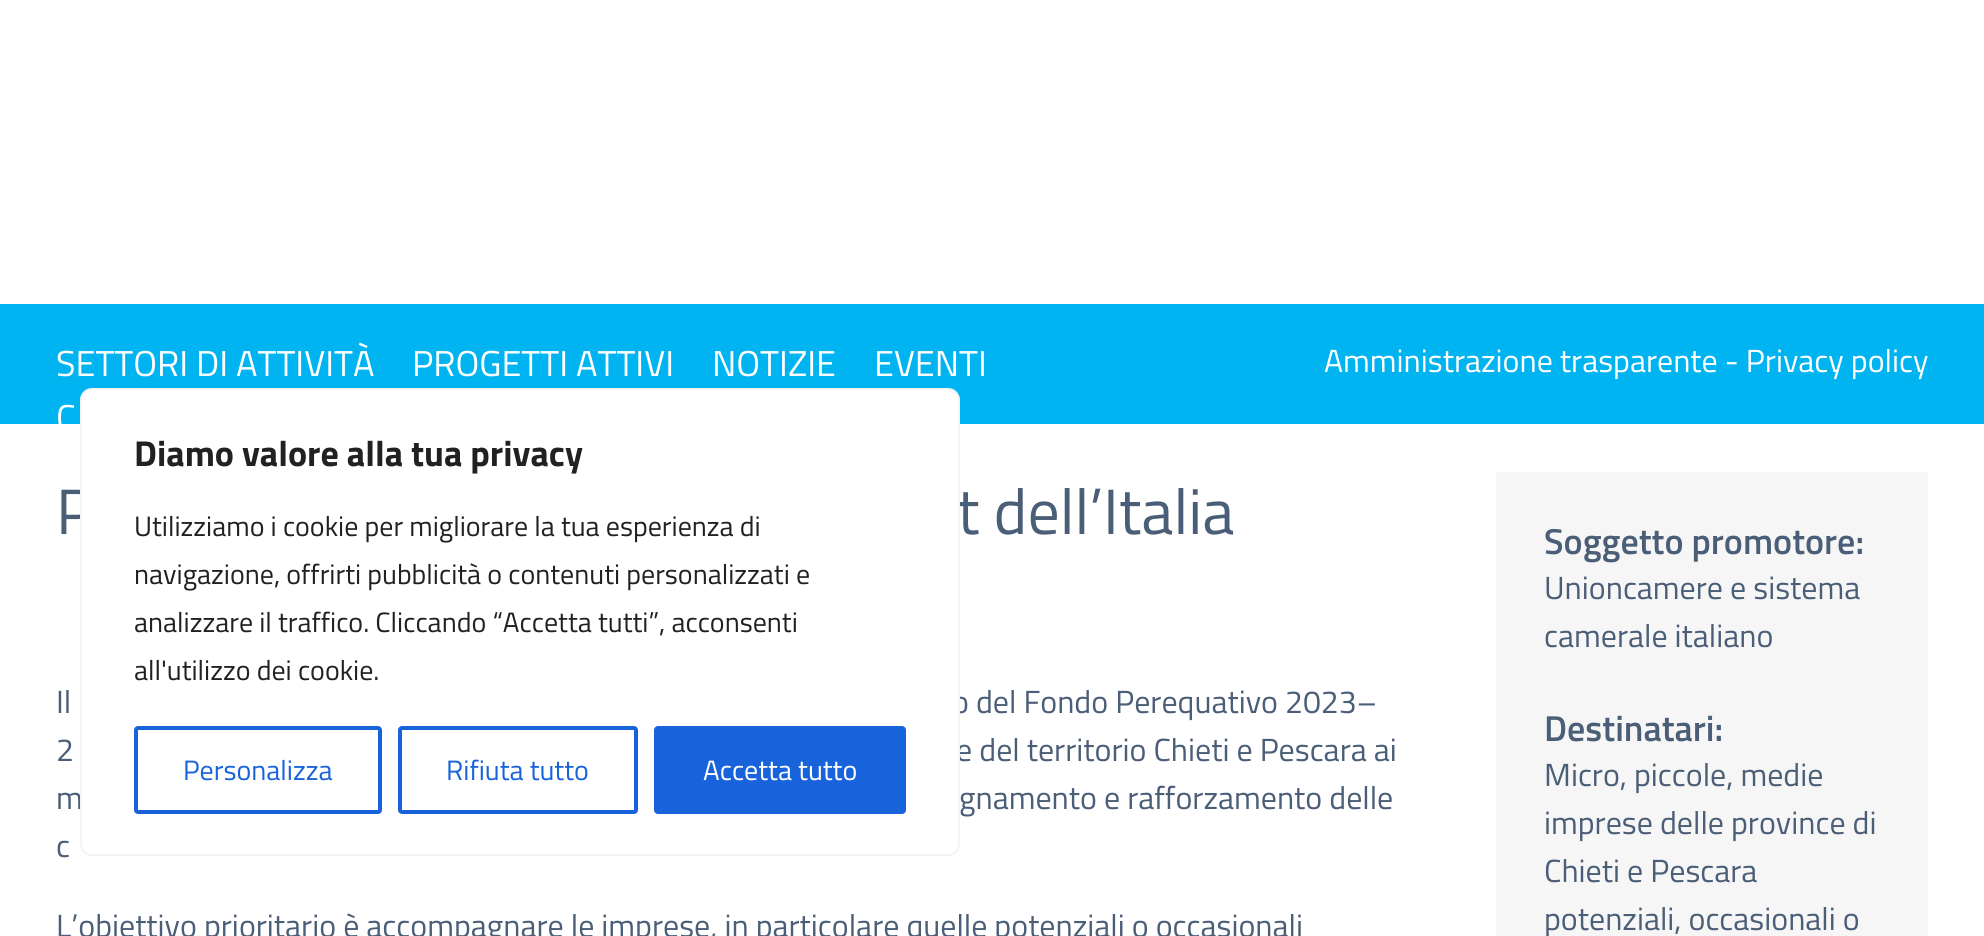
#include <cairo.h>
#include <math.h>
#include <stddef.h>

static cairo_t *ctx;

static void use_color(int r, int g, int b) {
    cairo_set_source_rgb(ctx, r / 255.0, g / 255.0, b / 255.0);
}

static void round_rect(double x, double y, double w, double h, double r) {
    cairo_new_sub_path(ctx);
    cairo_arc(ctx, x + w - r, y + h - r, r, 0, M_PI / 2);
    cairo_arc(ctx, x + r, y + h - r, r, M_PI / 2, M_PI);
    cairo_arc(ctx, x + r, y + r, r, M_PI, 1.5 * M_PI);
    cairo_arc(ctx, x + w - r, y + r, r, 1.5 * M_PI, 2 * M_PI);
    cairo_close_path(ctx);
}

static void shadow(double x, double y, double w, double h, double r, double blur, double alpha) {
    cairo_push_group_with_content(ctx, CAIRO_CONTENT_ALPHA);
    cairo_set_operator(ctx, CAIRO_OPERATOR_SOURCE);
    for (int i = 15; i >= -15 && fmin(w, h) + blur * i / 3 > 0; i -= 2) {
        double e = blur * i / 6;
        cairo_set_source_rgba(ctx, 0, 0, 0, alpha * erfc((i - 1) / 8.5) / 2);
        round_rect(x - e, y - e, w + 2 * e, h + 2 * e, fmax(0, fmin(r + e + blur * .6, fmin(w, h) / 2 + e)));
        cairo_fill(ctx);
    }
    cairo_pattern_t *soft = cairo_pop_group(ctx);
    cairo_mask(ctx, soft);
    cairo_pattern_destroy(soft);
}

int main(void) {
    cairo_surface_t *surface = cairo_image_surface_create(CAIRO_FORMAT_RGB24, 1984, 936);
    ctx = cairo_create(surface);
    cairo_font_options_t *options = cairo_font_options_create();
    cairo_font_options_set_hint_metrics(options, CAIRO_HINT_METRICS_OFF);
    cairo_font_options_set_hint_style(options, CAIRO_HINT_STYLE_NONE);
    cairo_set_font_options(ctx, options);
    cairo_set_miter_limit(ctx, 4);
    use_color(255, 255, 255);
    cairo_paint(ctx);
    use_color(0, 180, 241);
    cairo_rectangle(ctx, 0, 304, 1984, 120);
    cairo_fill(ctx);
    cairo_select_font_face(ctx, "Titillium Web", CAIRO_FONT_SLANT_NORMAL, CAIRO_FONT_WEIGHT_NORMAL);
    cairo_set_font_size(ctx, 36);
    use_color(255, 255, 255);
    cairo_move_to(ctx, 56, 376);
    cairo_show_text(ctx, "SETTORI DI ATTIVITÀ");
    cairo_move_to(ctx, 412, 376);
    cairo_show_text(ctx, "PROGETTI ATTIVI");
    cairo_move_to(ctx, 712, 376);
    cairo_show_text(ctx, "NOTIZIE");
    cairo_move_to(ctx, 874, 376);
    cairo_show_text(ctx, "EVENTI");
    cairo_move_to(ctx, 56, 430);
    cairo_show_text(ctx, "C");
    cairo_set_font_size(ctx, 32);
    cairo_move_to(ctx, 1324, 372);
    cairo_show_text(ctx, "Amministrazione trasparente - Privacy policy");
    cairo_save(ctx);
    round_rect(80, 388, 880, 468, 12);
    cairo_clip(ctx);
    use_color(172, 171, 171);
    shadow(80, 386, 880, 468, 12, 10, 0.3);
    cairo_restore(ctx);
    cairo_set_font_size(ctx, 64);
    use_color(75, 94, 119);
    cairo_move_to(ctx, 56, 534);
    cairo_show_text(ctx, "P");
    cairo_move_to(ctx, 957, 534);
    cairo_show_text(ctx, "t dell’Italia");
    cairo_set_font_size(ctx, 32);
    cairo_move_to(ctx, 952, 713);
    cairo_show_text(ctx, "o del Fondo Perequativo 2023–");
    cairo_move_to(ctx, 956, 761);
    cairo_show_text(ctx, "e del territorio Chieti e Pescara ai");
    cairo_move_to(ctx, 56, 809);
    cairo_show_text(ctx, "m");
    use_color(255, 255, 255);
    round_rect(81, 389, 878, 466, 11);
    cairo_fill_preserve(ctx);
    use_color(244, 244, 244);
    cairo_stroke(ctx);
    cairo_select_font_face(ctx, "Titillium Web", CAIRO_FONT_SLANT_NORMAL, CAIRO_FONT_WEIGHT_BOLD);
    cairo_set_font_size(ctx, 36);
    use_color(33, 33, 33);
    cairo_move_to(ctx, 134, 466);
    cairo_show_text(ctx, "Diamo valore alla tua privacy");
    cairo_select_font_face(ctx, "Titillium Web", CAIRO_FONT_SLANT_NORMAL, CAIRO_FONT_WEIGHT_NORMAL);
    cairo_set_font_size(ctx, 28);
    cairo_move_to(ctx, 134, 536);
    cairo_show_text(ctx, "Utilizziamo i cookie per migliorare la tua esperienza di");
    cairo_move_to(ctx, 134, 584);
    cairo_show_text(ctx, "navigazione, offrirti pubblicità o contenuti personalizzati e");
    cairo_move_to(ctx, 134, 632);
    cairo_show_text(ctx, "analizzare il traffico. Cliccando “Accetta tutti”, acconsenti");
    cairo_move_to(ctx, 134, 680);
    cairo_show_text(ctx, "all'utilizzo dei cookie.");
    round_rect(136, 728, 244, 84, 2);
    use_color(24, 99, 220);
    cairo_set_line_width(ctx, 4);
    cairo_stroke(ctx);
    cairo_move_to(ctx, 183, 780);
    cairo_show_text(ctx, "Personalizza");
    round_rect(400, 728, 236, 84, 2);
    cairo_stroke(ctx);
    cairo_move_to(ctx, 446, 780);
    cairo_show_text(ctx, "Rifiuta tutto");
    round_rect(656, 728, 248, 84, 2);
    cairo_fill_preserve(ctx);
    cairo_stroke(ctx);
    use_color(255, 255, 255);
    cairo_move_to(ctx, 703, 780);
    cairo_show_text(ctx, "Accetta tutto");
    cairo_set_font_size(ctx, 32);
    use_color(75, 94, 119);
    cairo_move_to(ctx, 56, 713);
    cairo_show_text(ctx, "Il");
    cairo_move_to(ctx, 56, 761);
    cairo_show_text(ctx, "2");
    cairo_move_to(ctx, 959, 809);
    cairo_show_text(ctx, "gnamento e rafforzamento delle");
    cairo_move_to(ctx, 56, 857);
    cairo_show_text(ctx, "c");
    cairo_move_to(ctx, 56, 937);
    cairo_show_text(ctx, "L’obiettivo prioritario è accompagnare le imprese, in particolare quelle potenziali o occasionali");
    use_color(246, 246, 246);
    cairo_rectangle(ctx, 1496, 472, 432, 464);
    cairo_fill(ctx);
    cairo_select_font_face(ctx, "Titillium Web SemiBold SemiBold", CAIRO_FONT_SLANT_NORMAL, CAIRO_FONT_WEIGHT_NORMAL);
    cairo_set_font_size(ctx, 36);
    use_color(75, 94, 119);
    cairo_move_to(ctx, 1544, 554);
    cairo_show_text(ctx, "Soggetto promotore:");
    cairo_select_font_face(ctx, "Titillium Web", CAIRO_FONT_SLANT_NORMAL, CAIRO_FONT_WEIGHT_NORMAL);
    cairo_set_font_size(ctx, 32);
    cairo_move_to(ctx, 1544, 599);
    cairo_show_text(ctx, "Unioncamere e sistema");
    cairo_move_to(ctx, 1544, 647);
    cairo_show_text(ctx, "camerale italiano");
    cairo_select_font_face(ctx, "Titillium Web SemiBold SemiBold", CAIRO_FONT_SLANT_NORMAL, CAIRO_FONT_WEIGHT_NORMAL);
    cairo_set_font_size(ctx, 36);
    cairo_move_to(ctx, 1544, 741);
    cairo_show_text(ctx, "Destinatari:");
    cairo_select_font_face(ctx, "Titillium Web", CAIRO_FONT_SLANT_NORMAL, CAIRO_FONT_WEIGHT_NORMAL);
    cairo_set_font_size(ctx, 32);
    cairo_move_to(ctx, 1544, 786);
    cairo_show_text(ctx, "Micro, piccole, medie");
    cairo_move_to(ctx, 1544, 834);
    cairo_show_text(ctx, "imprese delle province di");
    cairo_move_to(ctx, 1544, 882);
    cairo_show_text(ctx, "Chieti e Pescara");
    cairo_move_to(ctx, 1544, 930);
    cairo_show_text(ctx, "potenziali, occasionali o");
    cairo_surface_write_to_png(surface, "result.png");
    cairo_font_options_destroy(options);
    cairo_destroy(ctx);
    cairo_surface_destroy(surface);
    return 0;
}
